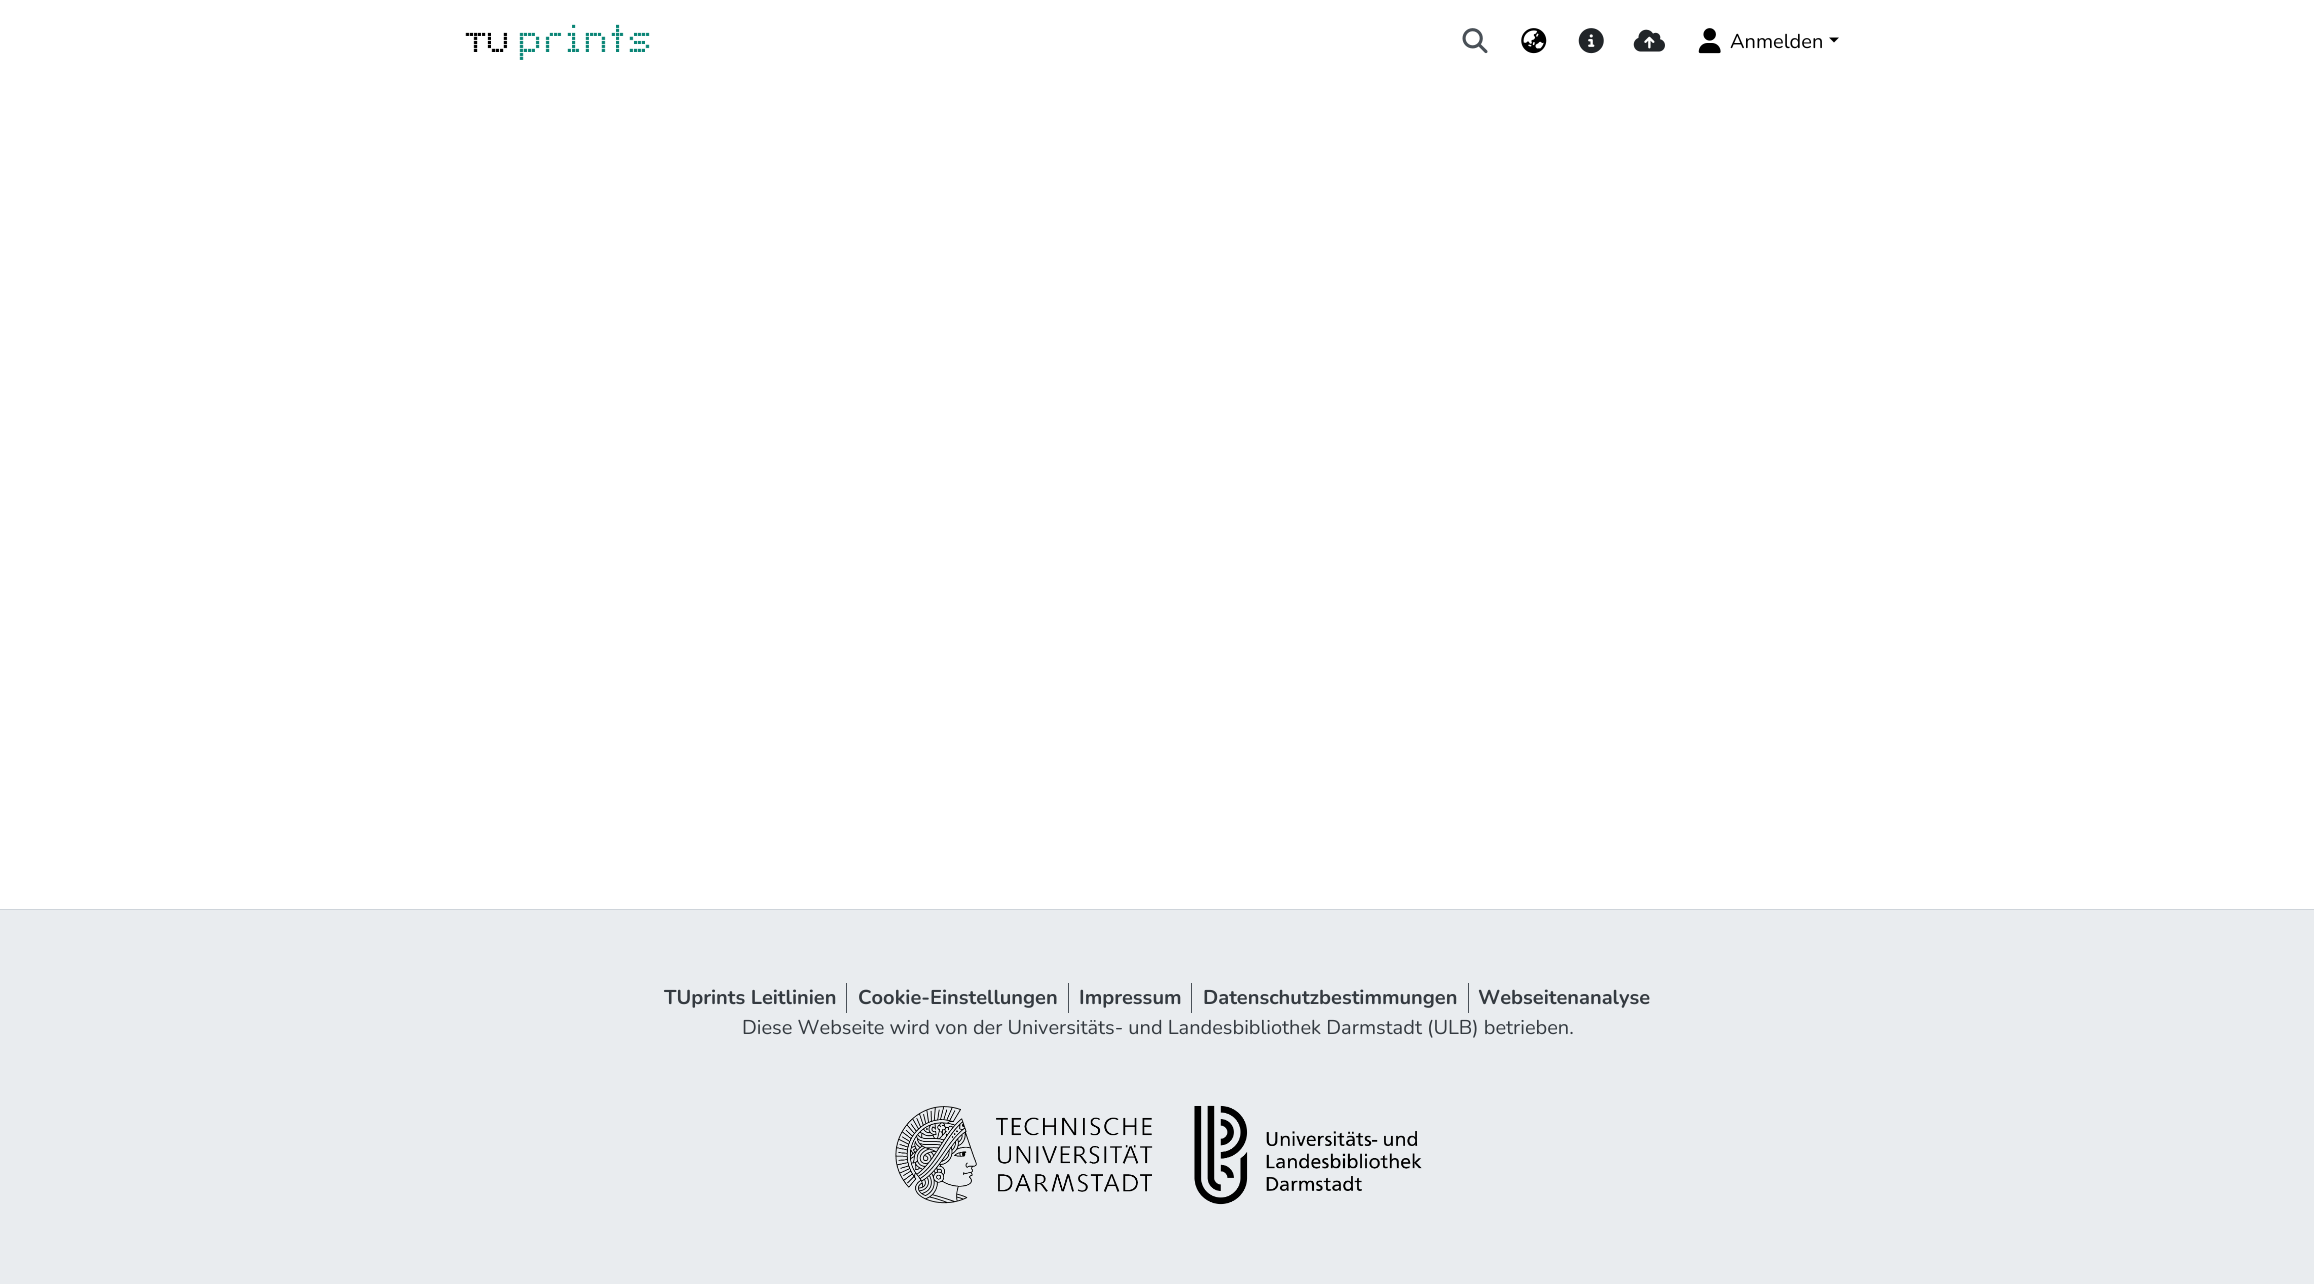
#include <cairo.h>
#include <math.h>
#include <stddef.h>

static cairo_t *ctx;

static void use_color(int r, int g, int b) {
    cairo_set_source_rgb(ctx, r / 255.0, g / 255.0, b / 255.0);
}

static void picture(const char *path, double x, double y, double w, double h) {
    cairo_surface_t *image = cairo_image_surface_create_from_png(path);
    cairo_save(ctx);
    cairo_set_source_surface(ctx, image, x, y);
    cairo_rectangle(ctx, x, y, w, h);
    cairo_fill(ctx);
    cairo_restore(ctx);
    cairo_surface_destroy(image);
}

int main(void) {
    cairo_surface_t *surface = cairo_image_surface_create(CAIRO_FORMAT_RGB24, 2314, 1284);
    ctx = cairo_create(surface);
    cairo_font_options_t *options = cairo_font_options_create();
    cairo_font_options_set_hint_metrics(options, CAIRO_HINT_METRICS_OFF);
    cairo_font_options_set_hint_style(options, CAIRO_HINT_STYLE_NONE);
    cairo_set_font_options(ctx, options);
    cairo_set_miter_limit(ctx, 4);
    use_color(255, 255, 255);
    cairo_paint(ctx);
    picture("img1.png", 465, 24, 185, 36);
    picture("img2.png", 1462, 28, 26, 26);
    picture("img3.png", 1521, 28, 26, 26);
    picture("img4.png", 1578, 28, 26, 26);
    picture("img5.png", 1633, 29, 32, 23);
    picture("img6.png", 1698, 28, 23, 26);
    cairo_select_font_face(ctx, "Nunito", CAIRO_FONT_SLANT_NORMAL, CAIRO_FONT_WEIGHT_NORMAL);
    cairo_set_font_size(ctx, 20);
    use_color(0, 0, 0);
    cairo_move_to(ctx, 1730, 48);
    cairo_show_text(ctx, "Anmelden");
    cairo_new_path(ctx);
    cairo_move_to(ctx, 1829, 37.5);
    cairo_line_to(ctx, 1839, 37.5);
    cairo_line_to(ctx, 1834, 42.5);
    cairo_close_path(ctx);
    cairo_fill(ctx);
    use_color(233, 236, 239);
    cairo_rectangle(ctx, 0, 910, 2314, 374);
    cairo_fill(ctx);
    use_color(206, 212, 218);
    cairo_rectangle(ctx, 0, 909, 2314, 1);
    cairo_fill(ctx);
    cairo_select_font_face(ctx, "Nunito", CAIRO_FONT_SLANT_NORMAL, CAIRO_FONT_WEIGHT_BOLD);
    use_color(52, 58, 64);
    cairo_move_to(ctx, 664, 1004);
    cairo_show_text(ctx, "TUprints Leitlinien");
    use_color(73, 80, 87);
    cairo_rectangle(ctx, 846, 983, 1, 30);
    cairo_fill(ctx);
    use_color(52, 58, 64);
    cairo_move_to(ctx, 858, 1004);
    cairo_show_text(ctx, "Cookie-Einstellungen");
    use_color(73, 80, 87);
    cairo_rectangle(ctx, 1068, 983, 1, 30);
    cairo_fill(ctx);
    use_color(52, 58, 64);
    cairo_move_to(ctx, 1079, 1004);
    cairo_show_text(ctx, "Impressum");
    use_color(73, 80, 87);
    cairo_rectangle(ctx, 1191, 983, 1, 30);
    cairo_fill(ctx);
    use_color(52, 58, 64);
    cairo_move_to(ctx, 1203, 1004);
    cairo_show_text(ctx, "Datenschutzbestimmungen");
    use_color(73, 80, 87);
    cairo_rectangle(ctx, 1468, 983, 1, 30);
    cairo_fill(ctx);
    use_color(52, 58, 64);
    cairo_move_to(ctx, 1478, 1004);
    cairo_show_text(ctx, "Webseitenanalyse");
    cairo_select_font_face(ctx, "Nunito", CAIRO_FONT_SLANT_NORMAL, CAIRO_FONT_WEIGHT_NORMAL);
    cairo_move_to(ctx, 742, 1034);
    cairo_show_text(ctx, "Diese Webseite wird von der Universitäts- und Landesbibliothek Darmstadt (ULB) betrieben.");
    picture("img7.png", 895, 1106, 258, 98);
    picture("img8.png", 1194, 1105, 228, 100);
    cairo_surface_write_to_png(surface, "result.png");
    cairo_font_options_destroy(options);
    cairo_destroy(ctx);
    cairo_surface_destroy(surface);
    return 0;
}
